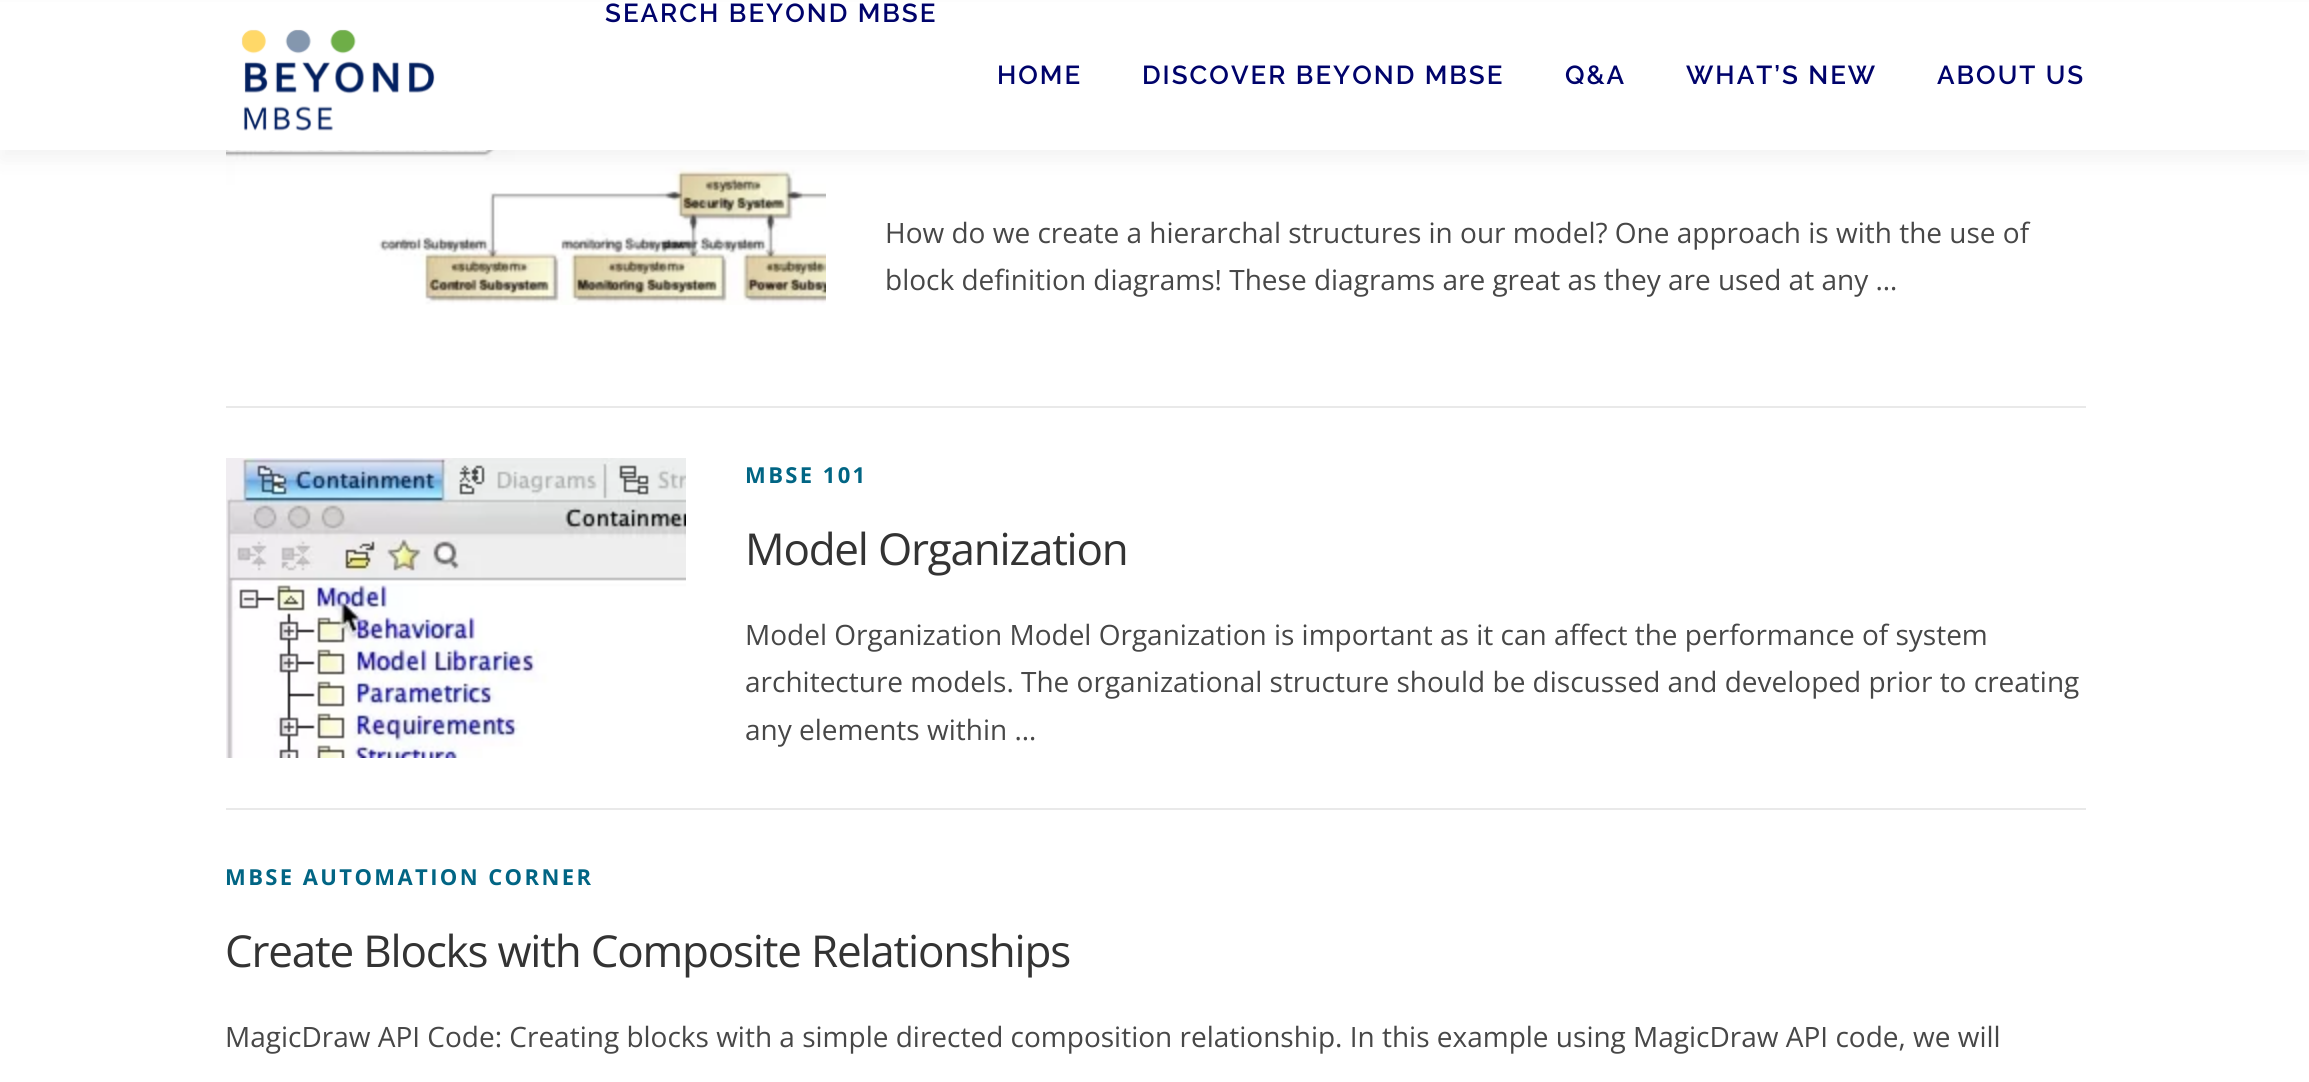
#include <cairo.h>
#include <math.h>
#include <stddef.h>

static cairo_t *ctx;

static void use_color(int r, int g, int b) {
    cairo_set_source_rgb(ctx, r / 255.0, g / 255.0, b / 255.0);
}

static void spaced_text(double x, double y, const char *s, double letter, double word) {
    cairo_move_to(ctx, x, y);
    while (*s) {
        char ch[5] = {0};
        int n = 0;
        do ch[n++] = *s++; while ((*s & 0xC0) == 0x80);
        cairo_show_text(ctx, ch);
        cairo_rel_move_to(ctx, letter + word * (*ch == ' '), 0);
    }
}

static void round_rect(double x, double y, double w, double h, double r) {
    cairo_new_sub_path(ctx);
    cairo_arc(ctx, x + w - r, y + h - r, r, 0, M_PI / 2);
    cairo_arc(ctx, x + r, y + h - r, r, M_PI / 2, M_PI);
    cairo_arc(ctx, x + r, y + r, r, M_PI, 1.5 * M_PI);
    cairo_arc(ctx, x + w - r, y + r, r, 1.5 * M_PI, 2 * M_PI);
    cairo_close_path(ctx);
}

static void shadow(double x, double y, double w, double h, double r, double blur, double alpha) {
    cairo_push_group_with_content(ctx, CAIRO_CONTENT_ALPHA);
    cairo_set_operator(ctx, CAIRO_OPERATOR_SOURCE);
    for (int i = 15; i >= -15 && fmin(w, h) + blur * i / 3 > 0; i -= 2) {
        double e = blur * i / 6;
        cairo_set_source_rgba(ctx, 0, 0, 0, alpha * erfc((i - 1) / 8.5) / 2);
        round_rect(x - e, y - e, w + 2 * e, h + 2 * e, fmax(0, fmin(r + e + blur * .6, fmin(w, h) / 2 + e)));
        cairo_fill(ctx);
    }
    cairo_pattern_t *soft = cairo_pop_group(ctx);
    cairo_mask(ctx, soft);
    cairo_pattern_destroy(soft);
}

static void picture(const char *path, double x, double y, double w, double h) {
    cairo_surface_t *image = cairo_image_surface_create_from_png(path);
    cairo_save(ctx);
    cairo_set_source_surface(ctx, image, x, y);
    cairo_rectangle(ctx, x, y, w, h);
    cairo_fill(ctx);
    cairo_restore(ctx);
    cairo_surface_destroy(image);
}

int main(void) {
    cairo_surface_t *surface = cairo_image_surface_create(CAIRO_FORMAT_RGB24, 2309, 1082);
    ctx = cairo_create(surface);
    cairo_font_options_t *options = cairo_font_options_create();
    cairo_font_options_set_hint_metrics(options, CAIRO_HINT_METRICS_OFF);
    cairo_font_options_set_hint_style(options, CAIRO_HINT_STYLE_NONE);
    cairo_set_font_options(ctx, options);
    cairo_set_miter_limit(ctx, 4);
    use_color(255, 255, 255);
    cairo_paint(ctx);
    picture("img2.png", 226, 150, 600, 155);
    use_color(50, 50, 50);
    shadow(0, 10, 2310, 150, 0, 10, 0.06);
    use_color(255, 255, 255);
    cairo_rectangle(ctx, 0, 2, 2309, 148);
    cairo_fill(ctx);
    picture("img1.png", 241, 29, 194, 102);
    cairo_select_font_face(ctx, "Raleway SemiBold", CAIRO_FONT_SLANT_NORMAL, CAIRO_FONT_WEIGHT_NORMAL);
    cairo_set_font_size(ctx, 26);
    use_color(0, 3, 107);
    spaced_text(605, 22, "SEARCH BEYOND MBSE", 2, 0);
    spaced_text(997, 84, "HOME", 2, 0);
    spaced_text(1142, 84, "DISCOVER BEYOND MBSE", 2, 0);
    spaced_text(1565, 84, "Q&A", 2, 0);
    spaced_text(1686, 84, "WHAT’S NEW", 2, 0);
    spaced_text(1937, 84, "ABOUT US", 2, 0);
    cairo_select_font_face(ctx, "Open Sans", CAIRO_FONT_SLANT_NORMAL, CAIRO_FONT_WEIGHT_NORMAL);
    cairo_set_font_size(ctx, 28);
    use_color(71, 71, 71);
    cairo_move_to(ctx, 885, 243);
    cairo_show_text(ctx, "How do we create a hierarchal structures in our model? One approach is with the use of");
    cairo_move_to(ctx, 885, 290);
    cairo_show_text(ctx, "block definition diagrams! These diagrams are great as they are used at any …");
    use_color(233, 233, 233);
    cairo_rectangle(ctx, 226, 406, 1860, 2);
    cairo_fill(ctx);
    picture("img3.png", 226, 458, 460, 300);
    cairo_select_font_face(ctx, "Open Sans", CAIRO_FONT_SLANT_NORMAL, CAIRO_FONT_WEIGHT_BOLD);
    cairo_set_font_size(ctx, 22);
    use_color(1, 101, 132);
    spaced_text(745, 483, "MBSE 101", 2.4, 0);
    cairo_select_font_face(ctx, "Open Sans", CAIRO_FONT_SLANT_NORMAL, CAIRO_FONT_WEIGHT_NORMAL);
    cairo_set_font_size(ctx, 44);
    use_color(51, 51, 51);
    spaced_text(745, 565, "Model Organization", -1.2, 0);
    cairo_set_font_size(ctx, 28);
    use_color(71, 71, 71);
    cairo_move_to(ctx, 745, 645);
    cairo_show_text(ctx, "Model Organization Model Organization is important as it can affect the performance of system");
    cairo_move_to(ctx, 745, 692);
    cairo_show_text(ctx, "architecture models. The organizational structure should be discussed and developed prior to creating");
    cairo_move_to(ctx, 745, 740);
    cairo_show_text(ctx, "any elements within …");
    use_color(233, 233, 233);
    cairo_rectangle(ctx, 226, 808, 1860, 2);
    cairo_fill(ctx);
    cairo_select_font_face(ctx, "Open Sans", CAIRO_FONT_SLANT_NORMAL, CAIRO_FONT_WEIGHT_BOLD);
    cairo_set_font_size(ctx, 22);
    use_color(1, 101, 132);
    spaced_text(225, 885, "MBSE AUTOMATION CORNER", 2.4, 0);
    cairo_select_font_face(ctx, "Open Sans", CAIRO_FONT_SLANT_NORMAL, CAIRO_FONT_WEIGHT_NORMAL);
    cairo_set_font_size(ctx, 44);
    use_color(51, 51, 51);
    spaced_text(225, 967, "Create Blocks with Composite Relationships", -1.2, 0);
    cairo_set_font_size(ctx, 28);
    use_color(71, 71, 71);
    cairo_move_to(ctx, 225, 1047);
    cairo_show_text(ctx, "MagicDraw API Code: Creating blocks with a simple directed composition relationship. In this example using MagicDraw API code, we will");
    cairo_surface_write_to_png(surface, "result.png");
    cairo_font_options_destroy(options);
    cairo_destroy(ctx);
    cairo_surface_destroy(surface);
    return 0;
}
